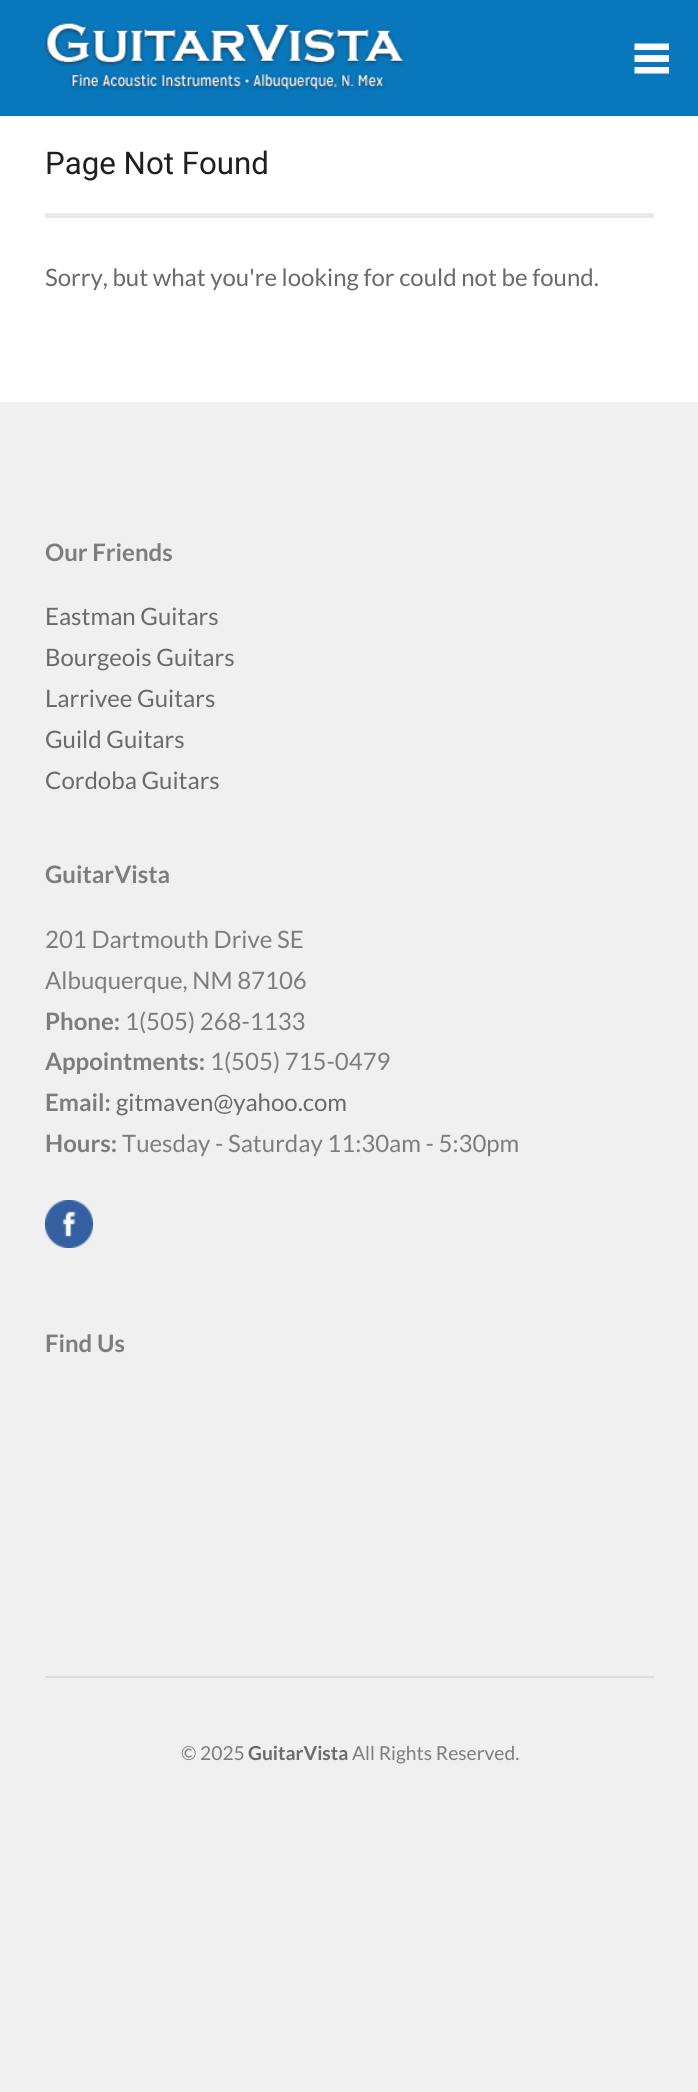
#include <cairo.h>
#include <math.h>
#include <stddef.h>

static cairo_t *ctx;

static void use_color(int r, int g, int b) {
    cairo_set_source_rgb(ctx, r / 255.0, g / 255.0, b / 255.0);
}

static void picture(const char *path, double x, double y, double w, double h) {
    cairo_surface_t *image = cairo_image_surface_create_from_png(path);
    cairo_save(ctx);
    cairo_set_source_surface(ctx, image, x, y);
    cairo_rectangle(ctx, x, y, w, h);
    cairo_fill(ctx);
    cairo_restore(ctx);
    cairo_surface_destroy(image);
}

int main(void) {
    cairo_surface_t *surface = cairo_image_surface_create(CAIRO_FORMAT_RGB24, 698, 2092);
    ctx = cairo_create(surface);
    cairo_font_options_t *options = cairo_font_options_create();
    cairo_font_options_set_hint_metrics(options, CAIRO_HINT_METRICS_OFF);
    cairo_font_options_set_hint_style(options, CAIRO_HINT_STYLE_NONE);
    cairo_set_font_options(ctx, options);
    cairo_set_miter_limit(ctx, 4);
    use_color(241, 240, 240);
    cairo_paint(ctx);
    use_color(255, 255, 255);
    cairo_rectangle(ctx, 0, 116, 698, 286);
    cairo_fill(ctx);
    use_color(9, 119, 188);
    cairo_rectangle(ctx, 0, 0, 698, 116);
    cairo_fill(ctx);
    picture("img1.png", 45, 22, 359, 71);
    picture("img2.png", 634, 43, 35, 31);
    use_color(233, 233, 233);
    cairo_rectangle(ctx, 45, 213, 609, 5);
    cairo_fill(ctx);
    cairo_select_font_face(ctx, "Roboto", CAIRO_FONT_SLANT_NORMAL, CAIRO_FONT_WEIGHT_NORMAL);
    cairo_set_font_size(ctx, 31.25);
    use_color(31, 31, 31);
    cairo_move_to(ctx, 45, 174);
    cairo_show_text(ctx, "Page Not Found");
    cairo_select_font_face(ctx, "Lato", CAIRO_FONT_SLANT_NORMAL, CAIRO_FONT_WEIGHT_NORMAL);
    cairo_set_font_size(ctx, 24);
    use_color(106, 106, 106);
    cairo_move_to(ctx, 45, 286);
    cairo_show_text(ctx, "Sorry, but what you're looking for could not be found.");
    use_color(220, 220, 220);
    cairo_rectangle(ctx, 45, 1676, 609, 2);
    cairo_fill(ctx);
    cairo_select_font_face(ctx, "Lato", CAIRO_FONT_SLANT_NORMAL, CAIRO_FONT_WEIGHT_BOLD);
    use_color(126, 125, 125);
    cairo_move_to(ctx, 45, 561);
    cairo_show_text(ctx, "Our Friends");
    cairo_select_font_face(ctx, "Lato", CAIRO_FONT_SLANT_NORMAL, CAIRO_FONT_WEIGHT_NORMAL);
    use_color(106, 106, 106);
    cairo_move_to(ctx, 45, 625);
    cairo_show_text(ctx, "Eastman Guitars");
    cairo_move_to(ctx, 45, 666);
    cairo_show_text(ctx, "Bourgeois Guitars");
    cairo_move_to(ctx, 45, 707);
    cairo_show_text(ctx, "Larrivee Guitars");
    cairo_move_to(ctx, 45, 748);
    cairo_show_text(ctx, "Guild Guitars");
    cairo_move_to(ctx, 45, 789);
    cairo_show_text(ctx, "Cordoba Guitars");
    cairo_select_font_face(ctx, "Lato", CAIRO_FONT_SLANT_NORMAL, CAIRO_FONT_WEIGHT_BOLD);
    use_color(126, 125, 125);
    cairo_move_to(ctx, 45, 883);
    cairo_show_text(ctx, "GuitarVista");
    cairo_select_font_face(ctx, "Lato", CAIRO_FONT_SLANT_NORMAL, CAIRO_FONT_WEIGHT_NORMAL);
    cairo_move_to(ctx, 45, 948);
    cairo_show_text(ctx, "201 Dartmouth Drive SE");
    cairo_move_to(ctx, 45, 989);
    cairo_show_text(ctx, "Albuquerque, NM 87106");
    cairo_select_font_face(ctx, "Lato", CAIRO_FONT_SLANT_NORMAL, CAIRO_FONT_WEIGHT_BOLD);
    cairo_move_to(ctx, 45, 1030);
    cairo_show_text(ctx, "Phone:");
    cairo_select_font_face(ctx, "Lato", CAIRO_FONT_SLANT_NORMAL, CAIRO_FONT_WEIGHT_NORMAL);
    cairo_move_to(ctx, 125, 1030);
    cairo_show_text(ctx, "1(505) 268-1133");
    cairo_select_font_face(ctx, "Lato", CAIRO_FONT_SLANT_NORMAL, CAIRO_FONT_WEIGHT_BOLD);
    cairo_move_to(ctx, 45, 1070);
    cairo_show_text(ctx, "Appointments:");
    cairo_select_font_face(ctx, "Lato", CAIRO_FONT_SLANT_NORMAL, CAIRO_FONT_WEIGHT_NORMAL);
    cairo_move_to(ctx, 210, 1070);
    cairo_show_text(ctx, "1(505) 715-0479");
    cairo_select_font_face(ctx, "Lato", CAIRO_FONT_SLANT_NORMAL, CAIRO_FONT_WEIGHT_BOLD);
    cairo_move_to(ctx, 45, 1111);
    cairo_show_text(ctx, "Email:");
    cairo_select_font_face(ctx, "Lato", CAIRO_FONT_SLANT_NORMAL, CAIRO_FONT_WEIGHT_NORMAL);
    use_color(106, 106, 106);
    cairo_move_to(ctx, 116, 1111);
    cairo_show_text(ctx, "gitmaven@yahoo.com");
    cairo_select_font_face(ctx, "Lato", CAIRO_FONT_SLANT_NORMAL, CAIRO_FONT_WEIGHT_BOLD);
    use_color(126, 125, 125);
    cairo_move_to(ctx, 45, 1152);
    cairo_show_text(ctx, "Hours:");
    cairo_select_font_face(ctx, "Lato", CAIRO_FONT_SLANT_NORMAL, CAIRO_FONT_WEIGHT_NORMAL);
    cairo_move_to(ctx, 122, 1152);
    cairo_show_text(ctx, "Tuesday - Saturday 11:30am - 5:30pm");
    picture("img3.png", 45, 1200, 48, 48);
    cairo_select_font_face(ctx, "Lato", CAIRO_FONT_SLANT_NORMAL, CAIRO_FONT_WEIGHT_BOLD);
    cairo_move_to(ctx, 45, 1352);
    cairo_show_text(ctx, "Find Us");
    cairo_select_font_face(ctx, "Lato", CAIRO_FONT_SLANT_NORMAL, CAIRO_FONT_WEIGHT_NORMAL);
    cairo_set_font_size(ctx, 19.25);
    cairo_move_to(ctx, 181, 1760);
    cairo_show_text(ctx, "© 2025");
    cairo_select_font_face(ctx, "Lato", CAIRO_FONT_SLANT_NORMAL, CAIRO_FONT_WEIGHT_BOLD);
    use_color(106, 106, 106);
    cairo_move_to(ctx, 248, 1760);
    cairo_show_text(ctx, "GuitarVista");
    cairo_select_font_face(ctx, "Lato", CAIRO_FONT_SLANT_NORMAL, CAIRO_FONT_WEIGHT_NORMAL);
    use_color(126, 125, 125);
    cairo_move_to(ctx, 352, 1760);
    cairo_show_text(ctx, "All Rights Reserved.");
    cairo_surface_write_to_png(surface, "result.png");
    cairo_font_options_destroy(options);
    cairo_destroy(ctx);
    cairo_surface_destroy(surface);
    return 0;
}
